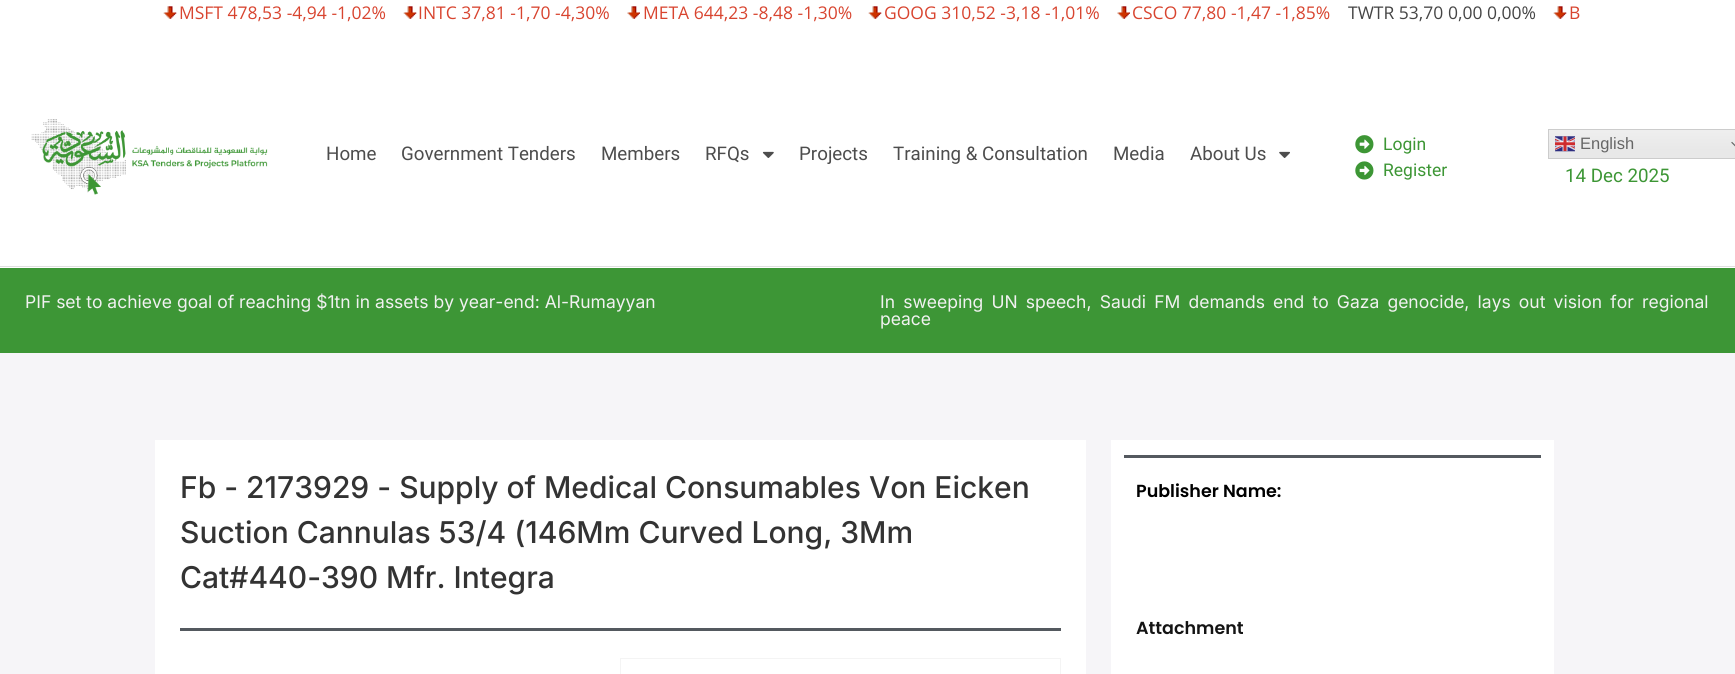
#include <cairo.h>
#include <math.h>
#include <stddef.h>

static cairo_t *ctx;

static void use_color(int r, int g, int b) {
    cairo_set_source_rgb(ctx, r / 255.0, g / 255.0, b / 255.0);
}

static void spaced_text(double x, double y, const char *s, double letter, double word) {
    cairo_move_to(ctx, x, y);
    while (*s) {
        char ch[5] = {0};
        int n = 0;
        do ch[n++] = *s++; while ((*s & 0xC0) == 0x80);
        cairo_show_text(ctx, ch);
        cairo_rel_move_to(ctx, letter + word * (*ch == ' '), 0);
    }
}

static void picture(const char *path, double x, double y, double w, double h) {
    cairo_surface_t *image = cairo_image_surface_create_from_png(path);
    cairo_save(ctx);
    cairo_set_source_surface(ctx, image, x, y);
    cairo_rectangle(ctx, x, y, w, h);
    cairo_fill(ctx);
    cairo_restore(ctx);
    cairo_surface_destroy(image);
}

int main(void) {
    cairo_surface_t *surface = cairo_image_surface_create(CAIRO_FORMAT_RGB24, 1735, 674);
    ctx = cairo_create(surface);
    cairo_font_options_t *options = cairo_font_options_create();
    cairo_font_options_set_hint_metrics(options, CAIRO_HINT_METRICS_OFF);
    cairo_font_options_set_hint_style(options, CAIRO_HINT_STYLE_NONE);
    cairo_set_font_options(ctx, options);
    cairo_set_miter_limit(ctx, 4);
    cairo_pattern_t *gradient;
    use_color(255, 255, 255);
    cairo_paint(ctx);
    picture("img1.png", 163, 6, 14, 13);
    cairo_select_font_face(ctx, "Open Sans", CAIRO_FONT_SLANT_NORMAL, CAIRO_FONT_WEIGHT_NORMAL);
    cairo_set_font_size(ctx, 17.5);
    use_color(216, 68, 47);
    cairo_move_to(ctx, 179, 19);
    cairo_show_text(ctx, "MSFT 478,53 -4,94 -1,02%");
    picture("img2.png", 403, 6, 14, 13);
    cairo_move_to(ctx, 418, 19);
    cairo_show_text(ctx, "INTC 37,81 -1,70 -4,30%");
    picture("img3.png", 627, 6, 13, 13);
    cairo_move_to(ctx, 643, 19);
    cairo_show_text(ctx, "META 644,23 -8,48 -1,30%");
    picture("img2.png", 868, 6, 14, 13);
    cairo_move_to(ctx, 884, 19);
    cairo_show_text(ctx, "GOOG 310,52 -3,18 -1,01%");
    picture("img4.png", 1117, 6, 13, 13);
    cairo_move_to(ctx, 1132, 19);
    cairo_show_text(ctx, "CSCO 77,80 -1,47 -1,85%");
    use_color(69, 69, 69);
    cairo_move_to(ctx, 1348, 19);
    cairo_show_text(ctx, "TWTR 53,70 0,00 0,00%");
    picture("img2.png", 1553, 6, 14, 13);
    use_color(216, 68, 47);
    cairo_move_to(ctx, 1569, 19);
    cairo_show_text(ctx, "B");
    use_color(224, 224, 224);
    cairo_rectangle(ctx, 0, 266, 1735, 1);
    cairo_fill(ctx);
    picture("img5.png", 31, 119, 237, 76);
    cairo_select_font_face(ctx, "Roboto", CAIRO_FONT_SLANT_NORMAL, CAIRO_FONT_WEIGHT_NORMAL);
    cairo_set_font_size(ctx, 18.75);
    use_color(77, 77, 77);
    cairo_move_to(ctx, 326, 160);
    cairo_show_text(ctx, "Home");
    cairo_move_to(ctx, 401, 160);
    cairo_show_text(ctx, "Government Tenders");
    cairo_move_to(ctx, 601, 160);
    cairo_show_text(ctx, "Members");
    cairo_move_to(ctx, 705, 160);
    cairo_show_text(ctx, "RFQs");
    picture("img6.png", 762, 151, 12, 7);
    cairo_move_to(ctx, 799, 160);
    cairo_show_text(ctx, "Projects");
    cairo_move_to(ctx, 893, 160);
    cairo_show_text(ctx, "Training & Consultation");
    cairo_move_to(ctx, 1113, 160);
    cairo_show_text(ctx, "Media");
    cairo_move_to(ctx, 1190, 160);
    cairo_show_text(ctx, "About Us");
    picture("img7.png", 1279, 151, 11, 7);
    picture("img8.png", 1355, 135, 19, 19);
    cairo_set_font_size(ctx, 17.5);
    use_color(61, 150, 53);
    cairo_move_to(ctx, 1383, 150);
    cairo_show_text(ctx, "Login");
    picture("img9.png", 1355, 161, 19, 19);
    cairo_move_to(ctx, 1383, 176);
    cairo_show_text(ctx, "Register");
    gradient = cairo_pattern_create_linear(1649, 129, 1649, 159);
    cairo_pattern_add_color_stop_rgba(gradient, 0, 0.937, 0.937, 0.937, 1);
    cairo_pattern_add_color_stop_rgba(gradient, 0.7, 0.91, 0.91, 0.91, 1);
    cairo_set_source(ctx, gradient);
    cairo_pattern_destroy(gradient);
    cairo_rectangle(ctx, 1549, 130, 186, 28);
    cairo_fill(ctx);
    cairo_rectangle(ctx, 1548.5, 129.5, 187, 29);
    use_color(204, 204, 204);
    cairo_set_line_width(ctx, 1);
    cairo_stroke(ctx);
    picture("img10.png", 1555, 136, 20, 16);
    cairo_select_font_face(ctx, "Liberation Sans", CAIRO_FONT_SLANT_NORMAL, CAIRO_FONT_WEIGHT_NORMAL);
    cairo_set_font_size(ctx, 16.5);
    use_color(102, 102, 102);
    cairo_move_to(ctx, 1580, 149);
    cairo_show_text(ctx, "English");
    picture("img11.png", 1731, 141, 4, 6);
    cairo_select_font_face(ctx, "Roboto", CAIRO_FONT_SLANT_NORMAL, CAIRO_FONT_WEIGHT_NORMAL);
    cairo_set_font_size(ctx, 18.75);
    use_color(61, 150, 53);
    cairo_move_to(ctx, 1565, 182);
    cairo_show_text(ctx, "14 Dec 2025");
    use_color(61, 150, 54);
    cairo_rectangle(ctx, 0, 268, 1735, 85);
    cairo_fill(ctx);
    cairo_select_font_face(ctx, "Inter", CAIRO_FONT_SLANT_NORMAL, CAIRO_FONT_WEIGHT_NORMAL);
    cairo_set_font_size(ctx, 17.5);
    use_color(241, 241, 241);
    cairo_move_to(ctx, 25, 308);
    cairo_show_text(ctx, "PIF set to achieve goal of reaching $1tn in assets by year-end: Al-Rumayyan");
    spaced_text(880, 308, "In sweeping UN speech, Saudi FM demands end to Gaza genocide, lays out vision for regional", 0, 3.25);
    cairo_move_to(ctx, 880, 325);
    cairo_show_text(ctx, "peace");
    use_color(246, 245, 248);
    cairo_rectangle(ctx, 0, 353, 1735, 321);
    cairo_fill(ctx);
    use_color(255, 255, 255);
    cairo_rectangle(ctx, 155, 440, 931, 234);
    cairo_fill(ctx);
    cairo_select_font_face(ctx, "Inter Medium", CAIRO_FONT_SLANT_NORMAL, CAIRO_FONT_WEIGHT_NORMAL);
    cairo_set_font_size(ctx, 30);
    use_color(51, 51, 51);
    cairo_move_to(ctx, 180, 498);
    cairo_show_text(ctx, "Fb - 2173929 - Supply of Medical Consumables Von Eicken");
    cairo_move_to(ctx, 180, 543);
    cairo_show_text(ctx, "Suction Cannulas 53/4 (146Mm Curved Long, 3Mm");
    cairo_move_to(ctx, 180, 588);
    cairo_show_text(ctx, "Cat#440-390 Mfr. Integra");
    use_color(84, 89, 95);
    cairo_rectangle(ctx, 180, 628, 881, 3);
    cairo_fill(ctx);
    cairo_rectangle(ctx, 620.5, 658.5, 440, 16);
    use_color(244, 244, 244);
    cairo_stroke(ctx);
    use_color(255, 255, 255);
    cairo_rectangle(ctx, 1111, 440, 443, 234);
    cairo_fill(ctx);
    use_color(84, 89, 95);
    cairo_rectangle(ctx, 1124, 455, 417, 3);
    cairo_fill(ctx);
    cairo_select_font_face(ctx, "Poppins SemiBold", CAIRO_FONT_SLANT_NORMAL, CAIRO_FONT_WEIGHT_NORMAL);
    cairo_set_font_size(ctx, 17.5);
    use_color(0, 0, 0);
    cairo_move_to(ctx, 1136, 497);
    cairo_show_text(ctx, "Publisher Name:");
    use_color(20, 20, 20);
    cairo_move_to(ctx, 1136, 634);
    cairo_show_text(ctx, "Attachment");
    cairo_surface_write_to_png(surface, "result.png");
    cairo_font_options_destroy(options);
    cairo_destroy(ctx);
    cairo_surface_destroy(surface);
    return 0;
}
